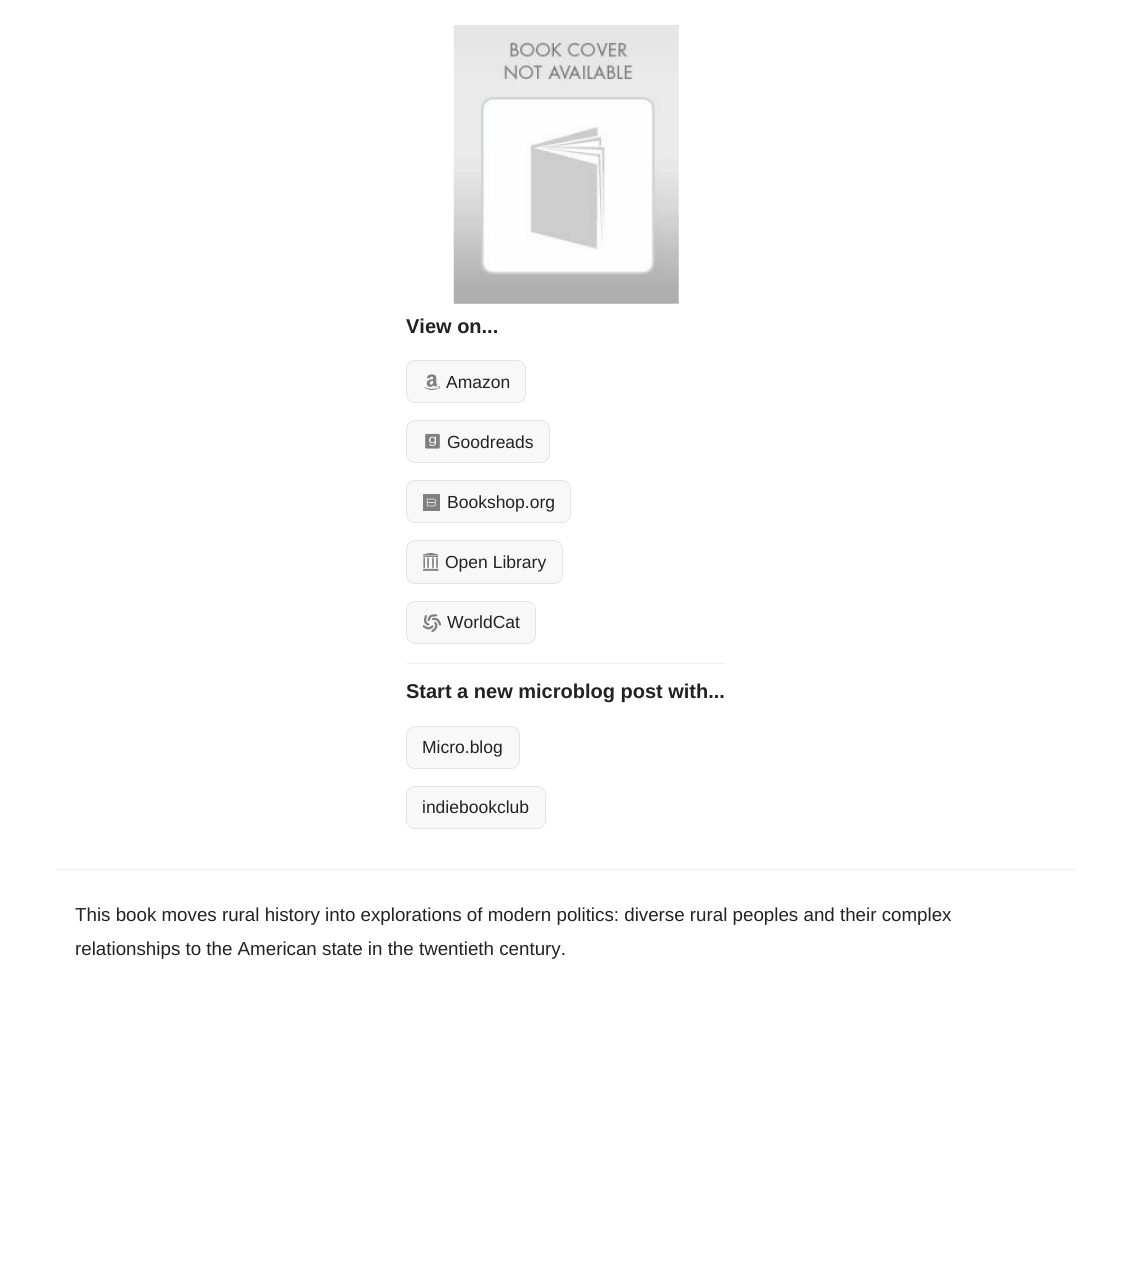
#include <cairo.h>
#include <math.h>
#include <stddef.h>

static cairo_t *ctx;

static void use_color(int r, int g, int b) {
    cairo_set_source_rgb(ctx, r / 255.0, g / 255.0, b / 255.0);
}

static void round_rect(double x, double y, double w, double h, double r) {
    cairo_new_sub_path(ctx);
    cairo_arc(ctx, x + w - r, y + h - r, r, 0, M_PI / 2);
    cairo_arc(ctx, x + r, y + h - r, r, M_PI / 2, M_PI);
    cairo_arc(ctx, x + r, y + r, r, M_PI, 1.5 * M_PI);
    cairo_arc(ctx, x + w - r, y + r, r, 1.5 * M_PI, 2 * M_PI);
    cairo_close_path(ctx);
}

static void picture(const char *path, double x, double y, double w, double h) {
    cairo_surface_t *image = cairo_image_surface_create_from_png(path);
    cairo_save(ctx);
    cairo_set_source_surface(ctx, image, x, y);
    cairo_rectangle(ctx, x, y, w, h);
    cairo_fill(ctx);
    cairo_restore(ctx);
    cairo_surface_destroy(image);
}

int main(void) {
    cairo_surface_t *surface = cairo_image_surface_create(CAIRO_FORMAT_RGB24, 1131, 1270);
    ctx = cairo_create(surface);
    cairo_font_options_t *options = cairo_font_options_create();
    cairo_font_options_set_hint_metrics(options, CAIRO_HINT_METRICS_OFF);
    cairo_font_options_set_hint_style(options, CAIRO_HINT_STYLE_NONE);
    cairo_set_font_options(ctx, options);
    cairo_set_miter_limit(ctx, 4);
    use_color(255, 255, 255);
    cairo_paint(ctx);
    picture("img1.png", 453, 25, 226, 279);
    cairo_select_font_face(ctx, "Liberation Sans", CAIRO_FONT_SLANT_NORMAL, CAIRO_FONT_WEIGHT_BOLD);
    cairo_set_font_size(ctx, 20);
    use_color(34, 34, 34);
    cairo_move_to(ctx, 406, 333);
    cairo_show_text(ctx, "View on...");
    use_color(248, 248, 248);
    round_rect(406.5, 360.5, 119, 42, 8.5);
    cairo_fill_preserve(ctx);
    use_color(229, 229, 229);
    cairo_set_line_width(ctx, 1);
    cairo_stroke(ctx);
    picture("img2.png", 423, 374, 17, 16);
    cairo_select_font_face(ctx, "Liberation Sans", CAIRO_FONT_SLANT_NORMAL, CAIRO_FONT_WEIGHT_NORMAL);
    cairo_set_font_size(ctx, 17.5);
    use_color(34, 34, 34);
    cairo_move_to(ctx, 446, 388);
    cairo_show_text(ctx, "Amazon");
    use_color(248, 248, 248);
    round_rect(406.5, 420.5, 143, 42, 8.5);
    cairo_fill_preserve(ctx);
    use_color(229, 229, 229);
    cairo_stroke(ctx);
    picture("img3.png", 425, 433, 15, 16);
    use_color(34, 34, 34);
    cairo_move_to(ctx, 447, 448);
    cairo_show_text(ctx, "Goodreads");
    use_color(248, 248, 248);
    round_rect(406.5, 480.5, 164, 42, 8.5);
    cairo_fill_preserve(ctx);
    use_color(229, 229, 229);
    cairo_stroke(ctx);
    picture("img4.png", 423, 494, 17, 17);
    use_color(34, 34, 34);
    cairo_move_to(ctx, 447, 508);
    cairo_show_text(ctx, "Bookshop.org");
    use_color(248, 248, 248);
    round_rect(406.5, 540.5, 156, 43, 8.5);
    cairo_fill_preserve(ctx);
    use_color(229, 229, 229);
    cairo_stroke(ctx);
    picture("img5.png", 423, 553, 16, 18);
    use_color(34, 34, 34);
    cairo_move_to(ctx, 445, 568);
    cairo_show_text(ctx, "Open Library");
    use_color(248, 248, 248);
    round_rect(406.5, 601.5, 129, 42, 8.5);
    cairo_fill_preserve(ctx);
    use_color(229, 229, 229);
    cairo_stroke(ctx);
    picture("img6.png", 423, 614, 18, 19);
    use_color(34, 34, 34);
    cairo_move_to(ctx, 447, 628);
    cairo_show_text(ctx, "WorldCat");
    use_color(239, 239, 239);
    cairo_rectangle(ctx, 406, 663, 319, 1);
    cairo_fill(ctx);
    cairo_select_font_face(ctx, "Liberation Sans", CAIRO_FONT_SLANT_NORMAL, CAIRO_FONT_WEIGHT_BOLD);
    cairo_set_font_size(ctx, 20);
    use_color(34, 34, 34);
    cairo_move_to(ctx, 406, 698);
    cairo_show_text(ctx, "Start a new microblog post with...");
    use_color(248, 248, 248);
    round_rect(406.5, 726.5, 113, 42, 8.5);
    cairo_fill_preserve(ctx);
    use_color(229, 229, 229);
    cairo_stroke(ctx);
    cairo_select_font_face(ctx, "Liberation Sans", CAIRO_FONT_SLANT_NORMAL, CAIRO_FONT_WEIGHT_NORMAL);
    cairo_set_font_size(ctx, 17.5);
    use_color(34, 34, 34);
    cairo_move_to(ctx, 422, 753);
    cairo_show_text(ctx, "Micro.blog");
    use_color(248, 248, 248);
    round_rect(406.5, 786.5, 139, 42, 8.5);
    cairo_fill_preserve(ctx);
    use_color(229, 229, 229);
    cairo_stroke(ctx);
    use_color(34, 34, 34);
    cairo_move_to(ctx, 422, 813);
    cairo_show_text(ctx, "indiebookclub");
    use_color(239, 239, 239);
    cairo_rectangle(ctx, 56, 869, 1019, 1);
    cairo_fill(ctx);
    cairo_set_font_size(ctx, 18.75);
    use_color(34, 34, 34);
    cairo_move_to(ctx, 75, 921);
    cairo_show_text(ctx, "This book moves rural history into explorations of modern politics: diverse rural peoples and their complex");
    cairo_move_to(ctx, 75, 955);
    cairo_show_text(ctx, "relationships to the American state in the twentieth century.");
    cairo_surface_write_to_png(surface, "result.png");
    cairo_font_options_destroy(options);
    cairo_destroy(ctx);
    cairo_surface_destroy(surface);
    return 0;
}
